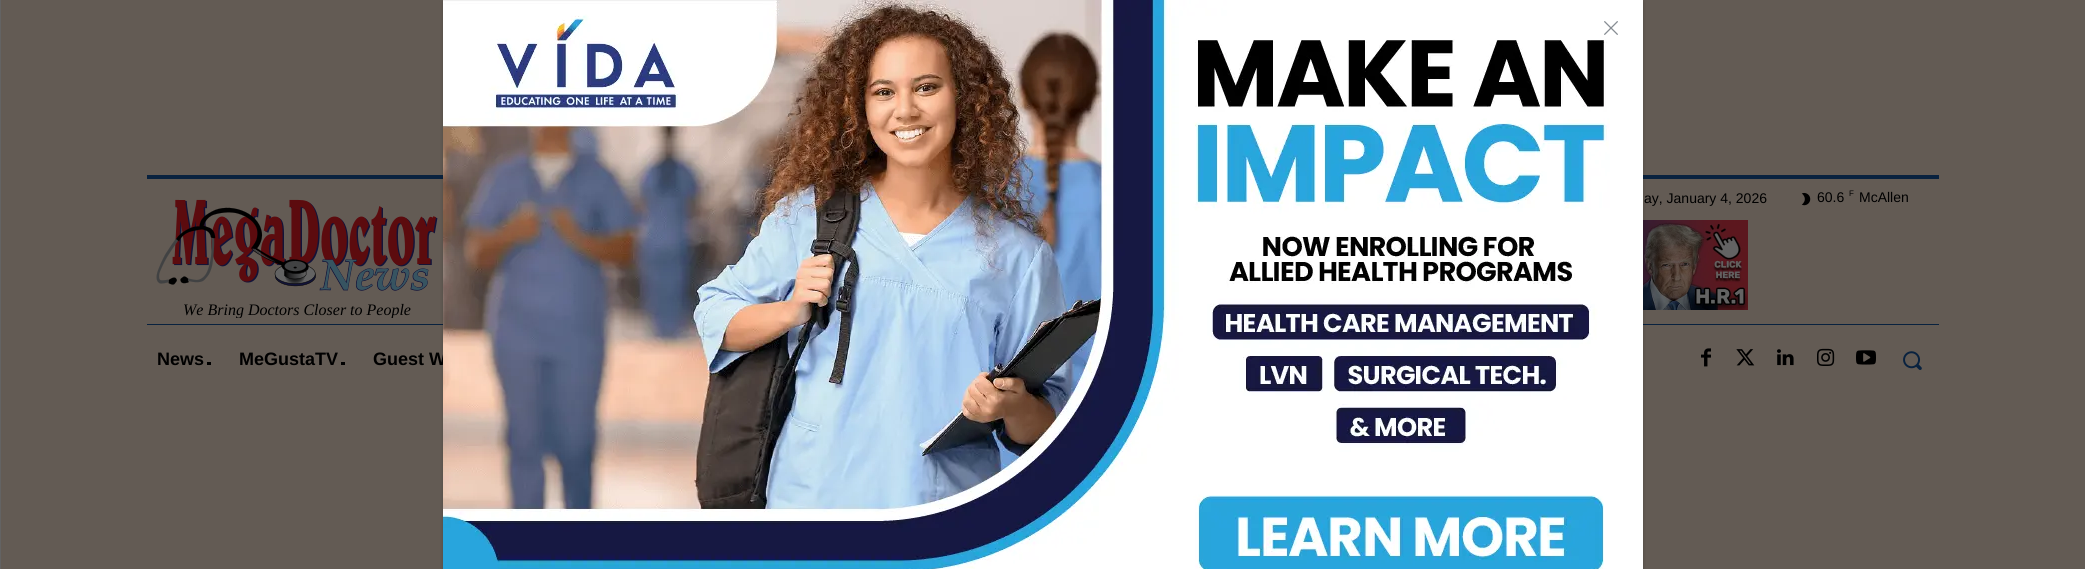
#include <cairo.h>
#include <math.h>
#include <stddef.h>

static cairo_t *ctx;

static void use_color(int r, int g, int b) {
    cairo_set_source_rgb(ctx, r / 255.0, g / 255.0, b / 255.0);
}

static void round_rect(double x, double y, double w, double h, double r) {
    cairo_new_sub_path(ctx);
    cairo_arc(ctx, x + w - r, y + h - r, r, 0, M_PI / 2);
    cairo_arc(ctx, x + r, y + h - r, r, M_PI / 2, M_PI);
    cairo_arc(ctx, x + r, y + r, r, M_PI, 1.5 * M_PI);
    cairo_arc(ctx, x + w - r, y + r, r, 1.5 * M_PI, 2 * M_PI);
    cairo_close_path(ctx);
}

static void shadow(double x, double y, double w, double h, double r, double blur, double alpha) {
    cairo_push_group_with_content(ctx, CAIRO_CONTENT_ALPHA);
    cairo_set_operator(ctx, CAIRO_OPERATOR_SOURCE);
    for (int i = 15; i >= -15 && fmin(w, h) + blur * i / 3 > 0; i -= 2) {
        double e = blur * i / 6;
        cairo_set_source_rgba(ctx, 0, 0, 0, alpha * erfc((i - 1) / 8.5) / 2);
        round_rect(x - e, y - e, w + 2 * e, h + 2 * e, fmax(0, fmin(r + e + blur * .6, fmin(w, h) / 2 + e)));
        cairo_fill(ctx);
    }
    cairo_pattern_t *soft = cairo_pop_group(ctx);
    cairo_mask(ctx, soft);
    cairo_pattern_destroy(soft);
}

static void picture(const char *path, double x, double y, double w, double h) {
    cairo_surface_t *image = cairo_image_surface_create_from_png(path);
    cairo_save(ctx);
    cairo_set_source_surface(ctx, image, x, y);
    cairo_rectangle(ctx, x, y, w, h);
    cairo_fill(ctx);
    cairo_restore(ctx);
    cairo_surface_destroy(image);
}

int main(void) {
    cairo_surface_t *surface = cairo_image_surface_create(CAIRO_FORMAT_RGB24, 2085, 569);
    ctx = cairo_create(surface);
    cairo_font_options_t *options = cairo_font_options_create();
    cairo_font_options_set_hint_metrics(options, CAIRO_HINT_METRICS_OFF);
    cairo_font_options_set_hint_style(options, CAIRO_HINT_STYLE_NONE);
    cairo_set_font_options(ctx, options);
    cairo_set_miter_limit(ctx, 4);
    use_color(99, 99, 99);
    cairo_paint(ctx);
    use_color(99, 91, 84);
    cairo_rectangle(ctx, 1, 0, 2084, 318);
    cairo_fill(ctx);
    use_color(9, 34, 63);
    cairo_rectangle(ctx, 147, 175, 1792, 4);
    cairo_fill(ctx);
    picture("img4.png", 156, 199, 282, 92);
    picture("img5.png", 1643, 220, 105, 90);
    cairo_select_font_face(ctx, "Liberation Serif", CAIRO_FONT_SLANT_ITALIC, CAIRO_FONT_WEIGHT_NORMAL);
    cairo_set_font_size(ctx, 16);
    use_color(0, 0, 0);
    cairo_move_to(ctx, 183, 315);
    cairo_show_text(ctx, "We Bring Doctors Closer to People");
    use_color(99, 91, 84);
    cairo_rectangle(ctx, 1, 318, 2084, 251);
    cairo_fill(ctx);
    use_color(9, 34, 63);
    cairo_rectangle(ctx, 147, 324, 1792, 1);
    cairo_fill(ctx);
    use_color(0, 0, 0);
    shadow(443, 2, 1200, 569, 0, 2, 0.2);
    use_color(255, 255, 255);
    cairo_rectangle(ctx, 1610, 0, 33, 569);
    cairo_fill(ctx);
    cairo_select_font_face(ctx, "Liberation Sans", CAIRO_FONT_SLANT_NORMAL, CAIRO_FONT_WEIGHT_BOLD);
    cairo_set_font_size(ctx, 18);
    use_color(0, 0, 0);
    cairo_move_to(ctx, 373, 365);
    cairo_show_text(ctx, "Guest W");
    picture("img1.png", 443, 0, 1167, 569);
    picture("img2.png", 1604, 21, 14, 14);
    cairo_select_font_face(ctx, "Liberation Sans", CAIRO_FONT_SLANT_NORMAL, CAIRO_FONT_WEIGHT_NORMAL);
    cairo_set_font_size(ctx, 14);
    cairo_move_to(ctx, 1644, 203);
    cairo_show_text(ctx, "ay, January 4, 2026");
    picture("img3.png", 1801, 192, 10, 14);
    cairo_move_to(ctx, 1817, 202);
    cairo_show_text(ctx, "60.6");
    cairo_set_font_size(ctx, 8);
    cairo_move_to(ctx, 1849, 196);
    cairo_show_text(ctx, "F");
    cairo_set_font_size(ctx, 14);
    cairo_move_to(ctx, 1859, 202);
    cairo_show_text(ctx, "McAllen");
    cairo_select_font_face(ctx, "Liberation Sans", CAIRO_FONT_SLANT_NORMAL, CAIRO_FONT_WEIGHT_BOLD);
    cairo_set_font_size(ctx, 18);
    cairo_move_to(ctx, 157, 365);
    cairo_show_text(ctx, "News");
    cairo_rectangle(ctx, 207, 362, 4, 3);
    cairo_fill(ctx);
    cairo_move_to(ctx, 239, 365);
    cairo_show_text(ctx, "MeGustaTV");
    cairo_rectangle(ctx, 341, 362, 4, 3);
    cairo_fill(ctx);
    picture("img6.png", 1701, 348, 10, 19);
    picture("img7.png", 1736, 349, 19, 17);
    picture("img8.png", 1777, 349, 17, 17);
    picture("img9.png", 1817, 348, 18, 18);
    picture("img10.png", 1856, 350, 20, 15);
    picture("img11.png", 1903, 351, 19, 19);
    cairo_surface_write_to_png(surface, "result.png");
    cairo_font_options_destroy(options);
    cairo_destroy(ctx);
    cairo_surface_destroy(surface);
    return 0;
}
